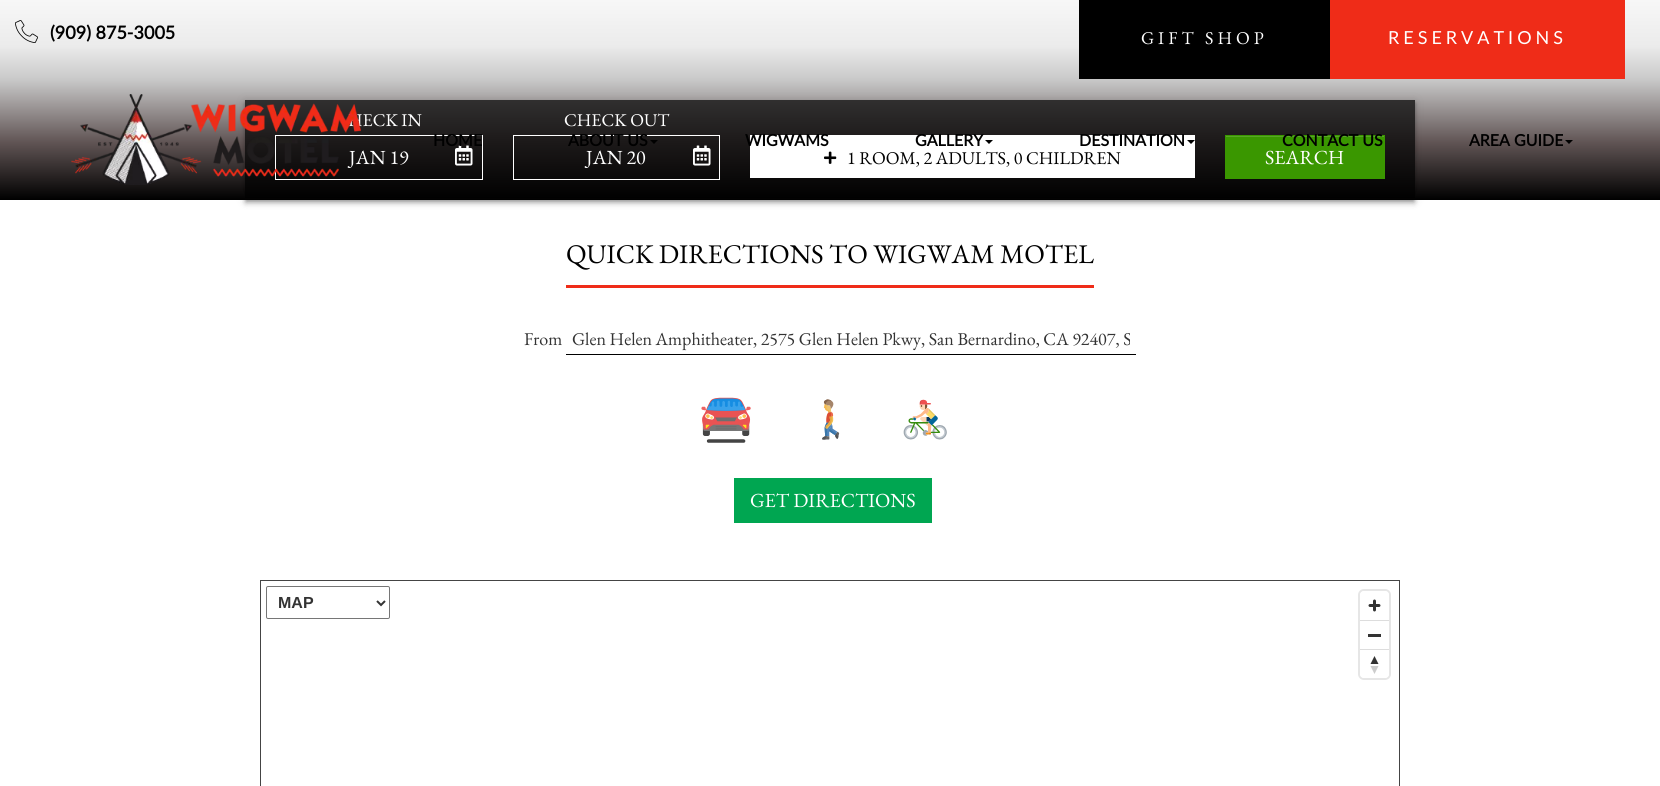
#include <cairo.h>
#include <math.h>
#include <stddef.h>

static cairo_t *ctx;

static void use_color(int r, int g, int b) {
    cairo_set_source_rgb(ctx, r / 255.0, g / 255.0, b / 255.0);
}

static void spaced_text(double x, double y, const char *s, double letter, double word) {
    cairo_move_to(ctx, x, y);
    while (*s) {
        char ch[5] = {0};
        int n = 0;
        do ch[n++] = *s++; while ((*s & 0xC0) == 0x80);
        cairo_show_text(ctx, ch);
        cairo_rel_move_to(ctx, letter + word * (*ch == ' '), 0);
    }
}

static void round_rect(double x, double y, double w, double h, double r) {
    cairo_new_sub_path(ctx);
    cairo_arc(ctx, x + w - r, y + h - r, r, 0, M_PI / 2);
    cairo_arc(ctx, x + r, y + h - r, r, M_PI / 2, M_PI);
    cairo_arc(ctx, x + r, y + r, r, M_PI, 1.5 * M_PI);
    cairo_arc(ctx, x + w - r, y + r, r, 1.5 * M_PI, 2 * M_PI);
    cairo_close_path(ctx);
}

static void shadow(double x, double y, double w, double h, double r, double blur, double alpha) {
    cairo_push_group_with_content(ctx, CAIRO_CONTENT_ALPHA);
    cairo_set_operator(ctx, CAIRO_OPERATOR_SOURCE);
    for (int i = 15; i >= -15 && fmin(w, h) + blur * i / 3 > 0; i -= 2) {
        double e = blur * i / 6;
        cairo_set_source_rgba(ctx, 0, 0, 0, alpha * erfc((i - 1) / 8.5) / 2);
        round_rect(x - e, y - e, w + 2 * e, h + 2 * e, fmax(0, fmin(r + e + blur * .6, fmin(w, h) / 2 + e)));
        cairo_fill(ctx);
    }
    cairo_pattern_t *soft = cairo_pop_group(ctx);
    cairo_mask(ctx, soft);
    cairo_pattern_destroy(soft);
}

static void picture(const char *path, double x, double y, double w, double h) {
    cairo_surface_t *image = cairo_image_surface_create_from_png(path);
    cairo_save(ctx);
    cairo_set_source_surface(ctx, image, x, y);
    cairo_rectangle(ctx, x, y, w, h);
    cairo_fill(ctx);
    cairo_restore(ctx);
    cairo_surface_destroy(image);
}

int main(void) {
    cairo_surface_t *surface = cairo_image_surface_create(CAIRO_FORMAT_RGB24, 1660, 786);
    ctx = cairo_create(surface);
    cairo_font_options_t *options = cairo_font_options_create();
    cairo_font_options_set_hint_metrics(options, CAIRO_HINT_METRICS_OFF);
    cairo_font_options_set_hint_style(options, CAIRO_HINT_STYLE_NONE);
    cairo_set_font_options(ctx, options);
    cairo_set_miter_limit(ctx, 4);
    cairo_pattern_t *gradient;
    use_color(255, 255, 255);
    cairo_paint(ctx);
    gradient = cairo_pattern_create_linear(830, 0, 830, 200);
    cairo_pattern_add_color_stop_rgba(gradient, 0, 0.969, 0.969, 0.969, 1);
    cairo_pattern_add_color_stop_rgba(gradient, 0.23, 0.922, 0.922, 0.922, 1);
    cairo_pattern_add_color_stop_rgba(gradient, 0.4, 0.784, 0.784, 0.784, 1);
    cairo_pattern_add_color_stop_rgba(gradient, 0.71, 0.38, 0.333, 0.333, 1);
    cairo_pattern_add_color_stop_rgba(gradient, 1, 0, 0, 0, 1);
    cairo_set_source(ctx, gradient);
    cairo_pattern_destroy(gradient);
    cairo_rectangle(ctx, 0, 0, 1660, 200);
    cairo_fill(ctx);
    picture("img1.png", 15, 20, 23, 23);
    cairo_select_font_face(ctx, "Lato", CAIRO_FONT_SLANT_NORMAL, CAIRO_FONT_WEIGHT_BOLD);
    cairo_set_font_size(ctx, 18);
    use_color(0, 0, 0);
    cairo_move_to(ctx, 50, 39);
    cairo_show_text(ctx, "(909) 875-3005");
    cairo_rectangle(ctx, 1079, 0, 251, 79);
    cairo_fill(ctx);
    cairo_select_font_face(ctx, "EB Garamond", CAIRO_FONT_SLANT_NORMAL, CAIRO_FONT_WEIGHT_NORMAL);
    use_color(255, 255, 255);
    spaced_text(1141, 44, "GIFT SHOP", 4, 0);
    use_color(239, 44, 24);
    cairo_rectangle(ctx, 1330, 0, 295, 79);
    cairo_fill(ctx);
    cairo_select_font_face(ctx, "Lato", CAIRO_FONT_SLANT_NORMAL, CAIRO_FONT_WEIGHT_NORMAL);
    use_color(255, 255, 255);
    spaced_text(1388, 44, "RESERVATIONS", 4, 0);
    gradient = cairo_pattern_create_linear(830, 0, 830, 200);
    cairo_pattern_add_color_stop_rgba(gradient, 0, 0.282, 0.282, 0.282, 1);
    cairo_pattern_add_color_stop_rgba(gradient, 0.23, 0.267, 0.267, 0.267, 1);
    cairo_pattern_add_color_stop_rgba(gradient, 0.4, 0.227, 0.227, 0.227, 1);
    cairo_pattern_add_color_stop_rgba(gradient, 0.71, 0.11, 0.098, 0.098, 1);
    cairo_pattern_add_color_stop_rgba(gradient, 1, 0, 0, 0, 1);
    cairo_set_source(ctx, gradient);
    cairo_pattern_destroy(gradient);
    cairo_rectangle(ctx, 245, 100, 1170, 98);
    cairo_fill(ctx);
    cairo_save(ctx);
    cairo_set_fill_rule(ctx, CAIRO_FILL_RULE_EVEN_ODD);
    cairo_new_path(ctx);
    cairo_move_to(ctx, 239, 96);
    cairo_line_to(ctx, 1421, 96);
    cairo_line_to(ctx, 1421, 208);
    cairo_line_to(ctx, 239, 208);
    cairo_close_path(ctx);
    cairo_move_to(ctx, 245, 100);
    cairo_line_to(ctx, 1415, 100);
    cairo_line_to(ctx, 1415, 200);
    cairo_line_to(ctx, 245, 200);
    cairo_close_path(ctx);
    cairo_clip(ctx);
    use_color(0, 0, 0);
    shadow(246, 103, 1168, 98, 0, 2, 0.3);
    cairo_restore(ctx);
    cairo_save(ctx);
    cairo_set_fill_rule(ctx, CAIRO_FILL_RULE_EVEN_ODD);
    cairo_new_path(ctx);
    cairo_move_to(ctx, 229, 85);
    cairo_line_to(ctx, 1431, 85);
    cairo_line_to(ctx, 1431, 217);
    cairo_line_to(ctx, 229, 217);
    cairo_close_path(ctx);
    cairo_move_to(ctx, 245, 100);
    cairo_line_to(ctx, 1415, 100);
    cairo_line_to(ctx, 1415, 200);
    cairo_line_to(ctx, 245, 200);
    cairo_close_path(ctx);
    cairo_clip(ctx);
    use_color(0, 0, 0);
    shadow(245, 101, 1170, 100, 0, 5, 0.12);
    cairo_restore(ctx);
    cairo_save(ctx);
    cairo_set_fill_rule(ctx, CAIRO_FILL_RULE_EVEN_ODD);
    cairo_new_path(ctx);
    cairo_move_to(ctx, 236, 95);
    cairo_line_to(ctx, 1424, 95);
    cairo_line_to(ctx, 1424, 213);
    cairo_line_to(ctx, 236, 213);
    cairo_close_path(ctx);
    cairo_move_to(ctx, 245, 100);
    cairo_line_to(ctx, 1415, 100);
    cairo_line_to(ctx, 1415, 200);
    cairo_line_to(ctx, 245, 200);
    cairo_close_path(ctx);
    cairo_clip(ctx);
    use_color(0, 0, 0);
    shadow(245, 104, 1170, 100, 0, 2.5, 0.14);
    cairo_restore(ctx);
    cairo_select_font_face(ctx, "EB Garamond", CAIRO_FONT_SLANT_NORMAL, CAIRO_FONT_WEIGHT_NORMAL);
    use_color(255, 255, 255);
    cairo_move_to(ctx, 348, 126);
    cairo_show_text(ctx, "HECK IN");
    cairo_rectangle(ctx, 275.5, 135.5, 207, 44);
    cairo_set_line_width(ctx, 1);
    cairo_stroke(ctx);
    cairo_set_font_size(ctx, 20);
    cairo_move_to(ctx, 349, 164);
    cairo_show_text(ctx, "JAN 19");
    picture("img2.png", 71, 94, 290, 91);
    picture("img3.png", 455, 145, 18, 21);
    cairo_select_font_face(ctx, "Lato", CAIRO_FONT_SLANT_NORMAL, CAIRO_FONT_WEIGHT_BOLD);
    cairo_set_font_size(ctx, 16);
    use_color(0, 0, 0);
    cairo_move_to(ctx, 433, 146);
    cairo_show_text(ctx, "HOME");
    cairo_rectangle(ctx, 513.5, 135.5, 206, 44);
    use_color(255, 255, 255);
    cairo_stroke(ctx);
    use_color(0, 0, 0);
    cairo_move_to(ctx, 568, 146);
    cairo_show_text(ctx, "ABOUT US");
    cairo_new_path(ctx);
    cairo_move_to(ctx, 650, 140);
    cairo_line_to(ctx, 658, 140);
    cairo_line_to(ctx, 654, 144);
    cairo_close_path(ctx);
    cairo_fill(ctx);
    use_color(255, 255, 255);
    cairo_rectangle(ctx, 750, 135, 445, 43);
    cairo_fill(ctx);
    use_color(0, 0, 0);
    cairo_move_to(ctx, 745, 146);
    cairo_show_text(ctx, "WIGWAMS");
    cairo_move_to(ctx, 915, 146);
    cairo_show_text(ctx, "GALLERY");
    cairo_new_path(ctx);
    cairo_move_to(ctx, 985, 140);
    cairo_line_to(ctx, 993, 140);
    cairo_line_to(ctx, 989, 144);
    cairo_close_path(ctx);
    cairo_fill(ctx);
    cairo_move_to(ctx, 1079, 146);
    cairo_show_text(ctx, "DESTINATION");
    cairo_new_path(ctx);
    cairo_move_to(ctx, 1187, 140);
    cairo_line_to(ctx, 1195, 140);
    cairo_line_to(ctx, 1191, 144);
    cairo_close_path(ctx);
    cairo_fill(ctx);
    use_color(58, 151, 0);
    cairo_rectangle(ctx, 1225, 135, 160, 44);
    cairo_fill(ctx);
    use_color(88, 167, 38);
    cairo_rectangle(ctx, 1226, 136, 158, 1);
    cairo_fill(ctx);
    use_color(0, 0, 0);
    cairo_move_to(ctx, 1282, 146);
    cairo_show_text(ctx, "CONTACT US");
    cairo_move_to(ctx, 1469, 146);
    cairo_show_text(ctx, "AREA GUIDE");
    cairo_new_path(ctx);
    cairo_move_to(ctx, 1565, 140);
    cairo_line_to(ctx, 1573, 140);
    cairo_line_to(ctx, 1569, 144);
    cairo_close_path(ctx);
    cairo_fill(ctx);
    cairo_select_font_face(ctx, "EB Garamond", CAIRO_FONT_SLANT_NORMAL, CAIRO_FONT_WEIGHT_NORMAL);
    cairo_set_font_size(ctx, 18);
    use_color(255, 255, 255);
    cairo_move_to(ctx, 564, 126);
    cairo_show_text(ctx, "CHECK OUT");
    cairo_set_font_size(ctx, 20);
    cairo_move_to(ctx, 586, 164);
    cairo_show_text(ctx, "JAN 20");
    picture("img3.png", 693, 145, 18, 21);
    picture("img4.png", 824, 151, 13, 13);
    cairo_set_font_size(ctx, 18);
    use_color(0, 0, 0);
    cairo_move_to(ctx, 847, 164);
    cairo_show_text(ctx, "1 ROOM, 2 ADULTS, 0 CHILDREN");
    cairo_set_font_size(ctx, 20);
    use_color(255, 255, 255);
    cairo_move_to(ctx, 1265, 164);
    cairo_show_text(ctx, "SEARCH");
    use_color(239, 44, 24);
    cairo_rectangle(ctx, 566, 285, 528, 3);
    cairo_fill(ctx);
    cairo_set_font_size(ctx, 27);
    use_color(0, 0, 0);
    cairo_move_to(ctx, 566, 263);
    cairo_show_text(ctx, "QUICK DIRECTIONS TO WIGWAM MOTEL");
    cairo_set_font_size(ctx, 18);
    use_color(51, 51, 51);
    cairo_move_to(ctx, 524, 345);
    cairo_show_text(ctx, "From");
    use_color(0, 0, 0);
    cairo_rectangle(ctx, 566, 354, 570, 1);
    cairo_fill(ctx);
    cairo_save(ctx);
    cairo_rectangle(ctx, 572, 326, 558, 26);
    cairo_clip(ctx);
    use_color(51, 51, 51);
    cairo_move_to(ctx, 572, 345);
    cairo_show_text(ctx, "Glen Helen Amphitheater, 2575 Glen Helen Pkwy, San Bernardino, CA 92407, S");
    cairo_restore(ctx);
    picture("img5.png", 701, 397, 50, 46);
    picture("img6.png", 822, 399, 18, 41);
    picture("img7.png", 903, 399, 44, 41);
    use_color(0, 166, 81);
    cairo_rectangle(ctx, 734, 478, 198, 45);
    cairo_fill(ctx);
    cairo_set_font_size(ctx, 20);
    use_color(255, 255, 255);
    cairo_move_to(ctx, 750, 507);
    cairo_show_text(ctx, "GET DIRECTIONS");
    cairo_rectangle(ctx, 260.5, 580.5, 1139, 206);
    use_color(68, 68, 68);
    cairo_stroke(ctx);
    round_rect(266.5, 586.5, 123, 32, 1.5);
    use_color(118, 118, 118);
    cairo_stroke(ctx);
    cairo_new_path(ctx);
    cairo_move_to(ctx, 377, 601);
    cairo_line_to(ctx, 381, 605);
    cairo_line_to(ctx, 385, 601);
    use_color(51, 51, 51);
    cairo_set_line_width(ctx, 2);
    cairo_stroke(ctx);
    cairo_select_font_face(ctx, "Liberation Sans", CAIRO_FONT_SLANT_NORMAL, CAIRO_FONT_WEIGHT_BOLD);
    cairo_set_font_size(ctx, 16);
    cairo_move_to(ctx, 278, 608);
    cairo_show_text(ctx, "MAP");
    round_rect(1359, 590, 31, 89, 5);
    use_color(230, 230, 230);
    cairo_stroke(ctx);
    use_color(255, 255, 255);
    round_rect(1360, 591, 29, 87, 4);
    cairo_fill(ctx);
    picture("img8.png", 1368, 599, 13, 13);
    use_color(221, 221, 221);
    cairo_rectangle(ctx, 1360, 620, 29, 1);
    cairo_fill(ctx);
    use_color(51, 51, 51);
    cairo_rectangle(ctx, 1368, 634, 13, 3);
    cairo_fill(ctx);
    use_color(221, 221, 221);
    cairo_rectangle(ctx, 1360, 649, 29, 1);
    cairo_fill(ctx);
    picture("img9.png", 1370, 656, 9, 18);
    cairo_surface_write_to_png(surface, "result.png");
    cairo_font_options_destroy(options);
    cairo_destroy(ctx);
    cairo_surface_destroy(surface);
    return 0;
}
